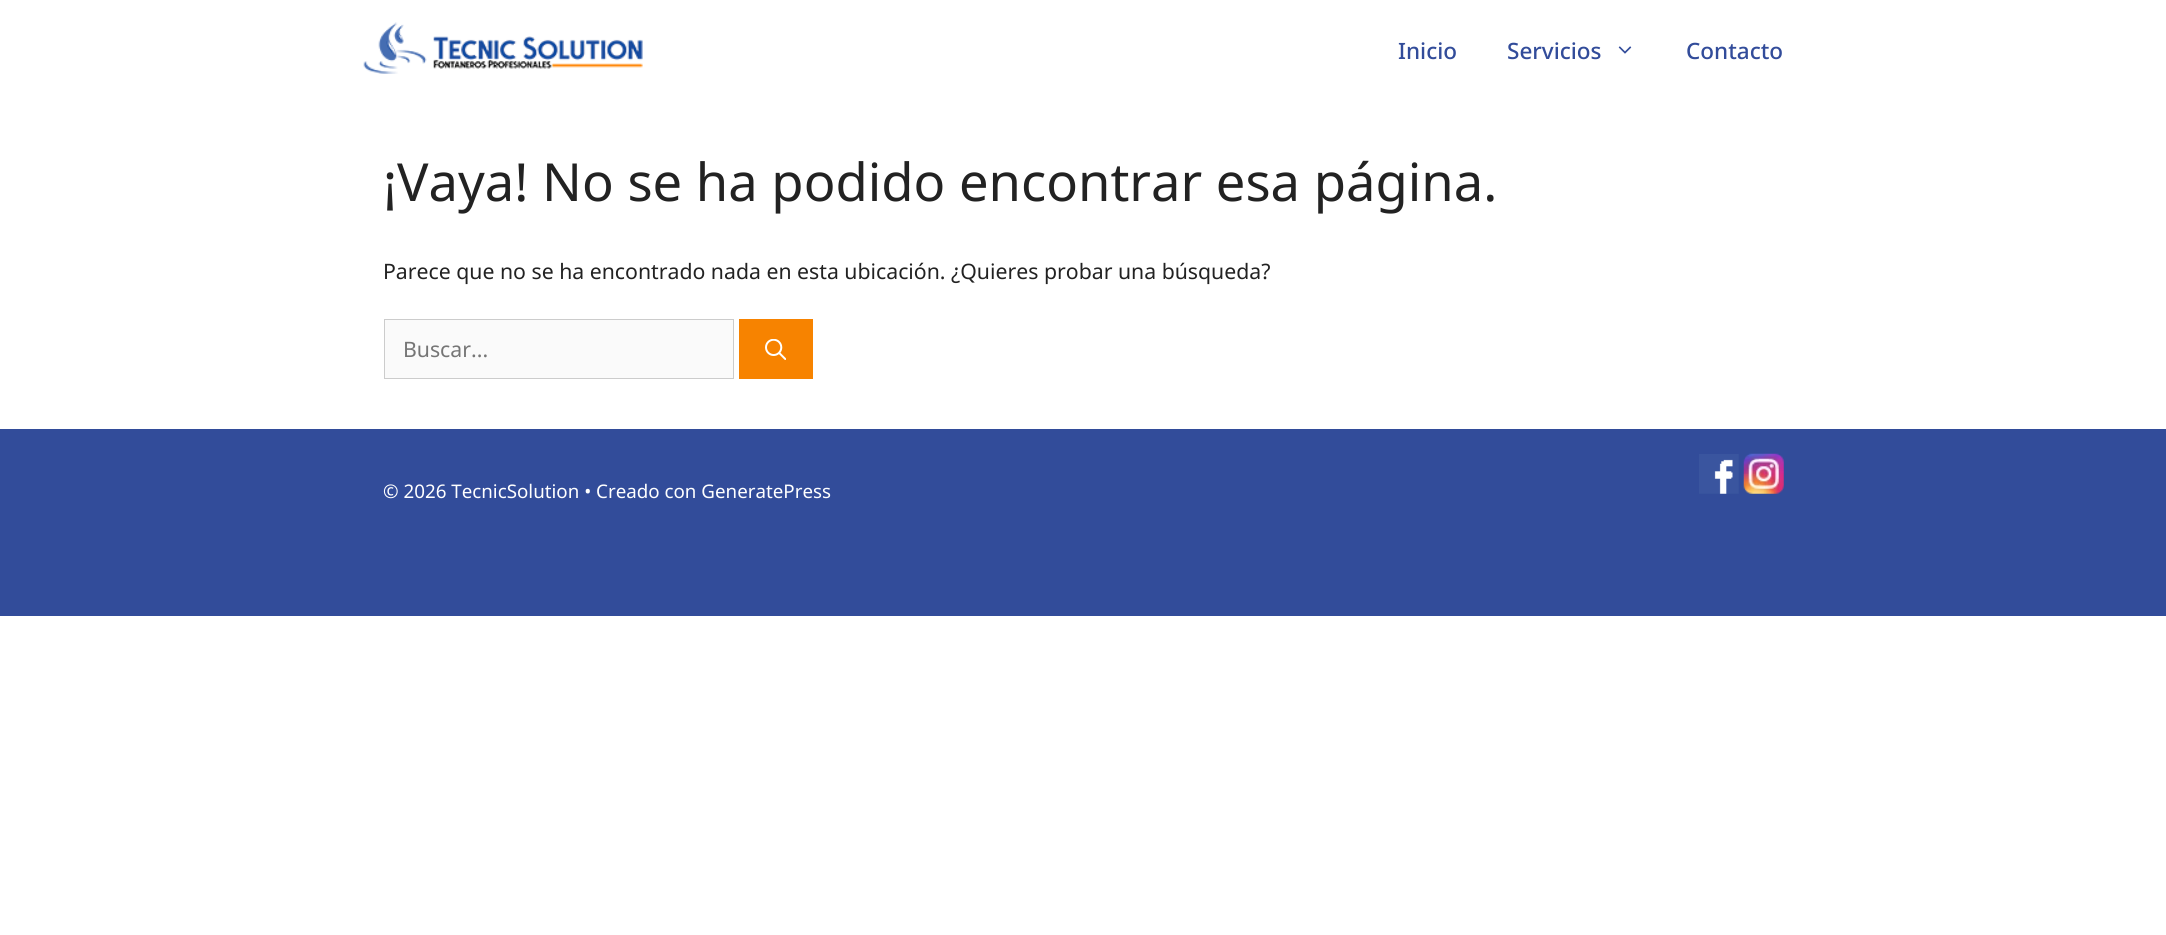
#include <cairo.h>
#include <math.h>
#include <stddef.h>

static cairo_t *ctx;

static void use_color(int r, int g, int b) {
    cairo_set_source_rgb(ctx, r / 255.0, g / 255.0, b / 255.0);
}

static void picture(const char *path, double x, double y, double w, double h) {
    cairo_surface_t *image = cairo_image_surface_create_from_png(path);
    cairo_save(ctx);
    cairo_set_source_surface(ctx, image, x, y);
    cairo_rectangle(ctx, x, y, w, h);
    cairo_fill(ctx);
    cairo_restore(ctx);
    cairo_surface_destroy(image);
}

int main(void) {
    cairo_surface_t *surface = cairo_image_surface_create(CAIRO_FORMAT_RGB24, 2166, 935);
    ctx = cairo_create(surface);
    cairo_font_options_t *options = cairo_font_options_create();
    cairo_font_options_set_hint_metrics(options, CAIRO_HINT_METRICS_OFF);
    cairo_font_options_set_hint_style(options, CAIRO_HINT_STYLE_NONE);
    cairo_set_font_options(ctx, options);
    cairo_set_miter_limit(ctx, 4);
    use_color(255, 255, 255);
    cairo_paint(ctx);
    picture("img1.png", 363, 22, 280, 52);
    cairo_select_font_face(ctx, "Noto Sans Medium", CAIRO_FONT_SLANT_NORMAL, CAIRO_FONT_WEIGHT_NORMAL);
    cairo_set_font_size(ctx, 22.5);
    use_color(50, 76, 154);
    cairo_move_to(ctx, 1398, 59);
    cairo_show_text(ctx, "Inicio");
    cairo_move_to(ctx, 1507, 59);
    cairo_show_text(ctx, "Servicios");
    picture("img2.png", 1618, 46, 14, 8);
    cairo_move_to(ctx, 1686, 59);
    cairo_show_text(ctx, "Contacto");
    cairo_select_font_face(ctx, "Noto Sans", CAIRO_FONT_SLANT_NORMAL, CAIRO_FONT_WEIGHT_NORMAL);
    cairo_set_font_size(ctx, 52.5);
    use_color(34, 34, 34);
    cairo_move_to(ctx, 383, 201);
    cairo_show_text(ctx, "¡Vaya! No se ha podido encontrar esa página.");
    cairo_set_font_size(ctx, 21.25);
    cairo_move_to(ctx, 383, 279);
    cairo_show_text(ctx, "Parece que no se ha encontrado nada en esta ubicación. ¿Quieres probar una búsqueda?");
    use_color(250, 250, 250);
    cairo_rectangle(ctx, 384.5, 319.5, 349, 59);
    cairo_fill_preserve(ctx);
    use_color(204, 204, 204);
    cairo_set_line_width(ctx, 1);
    cairo_stroke(ctx);
    use_color(117, 117, 117);
    cairo_move_to(ctx, 403, 357);
    cairo_show_text(ctx, "Buscar...");
    use_color(247, 131, 0);
    cairo_rectangle(ctx, 739, 319, 74, 60);
    cairo_fill(ctx);
    picture("img3.png", 765, 339, 21, 21);
    use_color(50, 76, 154);
    cairo_rectangle(ctx, 0, 429, 2166, 187);
    cairo_fill(ctx);
    cairo_set_font_size(ctx, 18.75);
    use_color(255, 255, 255);
    cairo_move_to(ctx, 383, 498);
    cairo_show_text(ctx, "© 2026 TecnicSolution • Creado con GeneratePress");
    picture("img4.png", 1699, 454, 40, 40);
    picture("img5.png", 1743, 453, 41, 41);
    cairo_surface_write_to_png(surface, "result.png");
    cairo_font_options_destroy(options);
    cairo_destroy(ctx);
    cairo_surface_destroy(surface);
    return 0;
}
